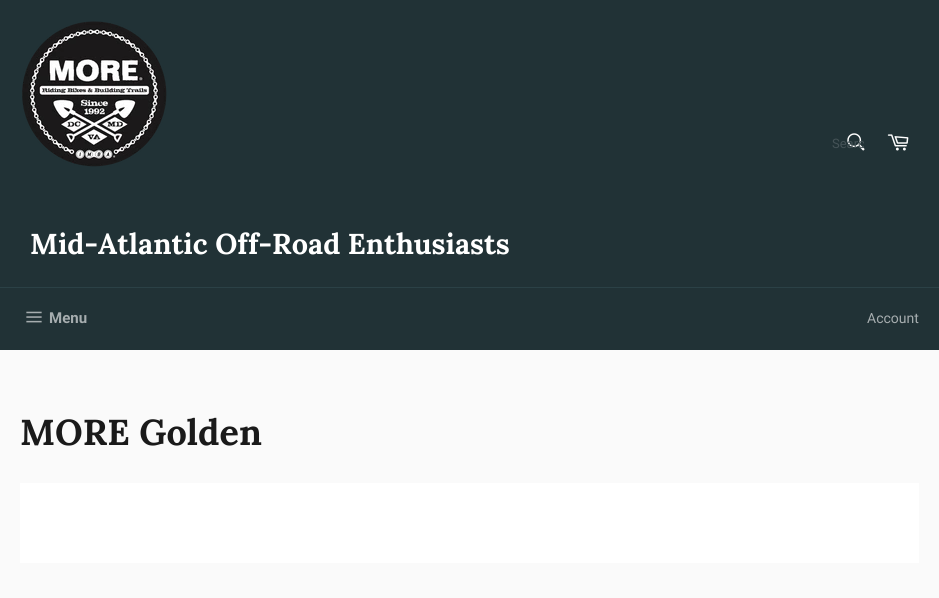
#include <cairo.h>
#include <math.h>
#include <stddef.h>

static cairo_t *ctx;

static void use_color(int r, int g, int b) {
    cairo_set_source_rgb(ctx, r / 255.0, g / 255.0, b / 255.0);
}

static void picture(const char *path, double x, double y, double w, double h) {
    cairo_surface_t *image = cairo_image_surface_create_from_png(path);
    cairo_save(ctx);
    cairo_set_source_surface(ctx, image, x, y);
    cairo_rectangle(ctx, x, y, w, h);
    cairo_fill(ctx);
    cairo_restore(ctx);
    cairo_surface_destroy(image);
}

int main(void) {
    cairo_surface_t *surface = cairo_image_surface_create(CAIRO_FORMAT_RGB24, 939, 598);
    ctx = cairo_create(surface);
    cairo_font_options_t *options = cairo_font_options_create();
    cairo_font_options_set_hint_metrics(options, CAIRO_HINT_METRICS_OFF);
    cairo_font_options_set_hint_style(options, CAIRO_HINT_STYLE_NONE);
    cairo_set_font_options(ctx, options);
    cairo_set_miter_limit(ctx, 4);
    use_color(250, 250, 250);
    cairo_paint(ctx);
    use_color(33, 50, 54);
    cairo_rectangle(ctx, 0, 0, 939, 287);
    cairo_fill(ctx);
    picture("img1.png", 847, 133, 18, 18);
    cairo_save(ctx);
    cairo_rectangle(ctx, 832, 136, 32, 15);
    cairo_clip(ctx);
    cairo_select_font_face(ctx, "Roboto", CAIRO_FONT_SLANT_NORMAL, CAIRO_FONT_WEIGHT_NORMAL);
    cairo_set_font_size(ctx, 13);
    use_color(68, 82, 86);
    cairo_move_to(ctx, 832, 148);
    cairo_show_text(ctx, "Searc");
    cairo_restore(ctx);
    picture("img2.png", 887, 134, 22, 17);
    picture("img3.png", 22, 21, 145, 146);
    cairo_select_font_face(ctx, "Lora", CAIRO_FONT_SLANT_NORMAL, CAIRO_FONT_WEIGHT_BOLD);
    cairo_set_font_size(ctx, 28.75);
    use_color(255, 255, 255);
    cairo_move_to(ctx, 30, 254);
    cairo_show_text(ctx, "Mid-Atlantic Off-Road Enthusiasts");
    use_color(33, 50, 54);
    cairo_rectangle(ctx, 0, 288, 939, 62);
    cairo_fill(ctx);
    use_color(43, 65, 70);
    cairo_rectangle(ctx, 0, 287, 939, 1);
    cairo_fill(ctx);
    picture("img4.png", 26, 311, 16, 12);
    cairo_select_font_face(ctx, "Roboto", CAIRO_FONT_SLANT_NORMAL, CAIRO_FONT_WEIGHT_BOLD);
    cairo_set_font_size(ctx, 15);
    use_color(166, 173, 175);
    cairo_move_to(ctx, 49, 323);
    cairo_show_text(ctx, "Menu");
    cairo_select_font_face(ctx, "Roboto", CAIRO_FONT_SLANT_NORMAL, CAIRO_FONT_WEIGHT_NORMAL);
    cairo_set_font_size(ctx, 14);
    cairo_move_to(ctx, 867, 323);
    cairo_show_text(ctx, "Account");
    cairo_select_font_face(ctx, "Lora", CAIRO_FONT_SLANT_NORMAL, CAIRO_FONT_WEIGHT_BOLD);
    cairo_set_font_size(ctx, 36);
    use_color(26, 26, 26);
    cairo_move_to(ctx, 20, 445);
    cairo_show_text(ctx, "MORE Golden");
    use_color(255, 255, 255);
    cairo_rectangle(ctx, 20, 483, 899, 80);
    cairo_fill(ctx);
    cairo_surface_write_to_png(surface, "result.png");
    cairo_font_options_destroy(options);
    cairo_destroy(ctx);
    cairo_surface_destroy(surface);
    return 0;
}
